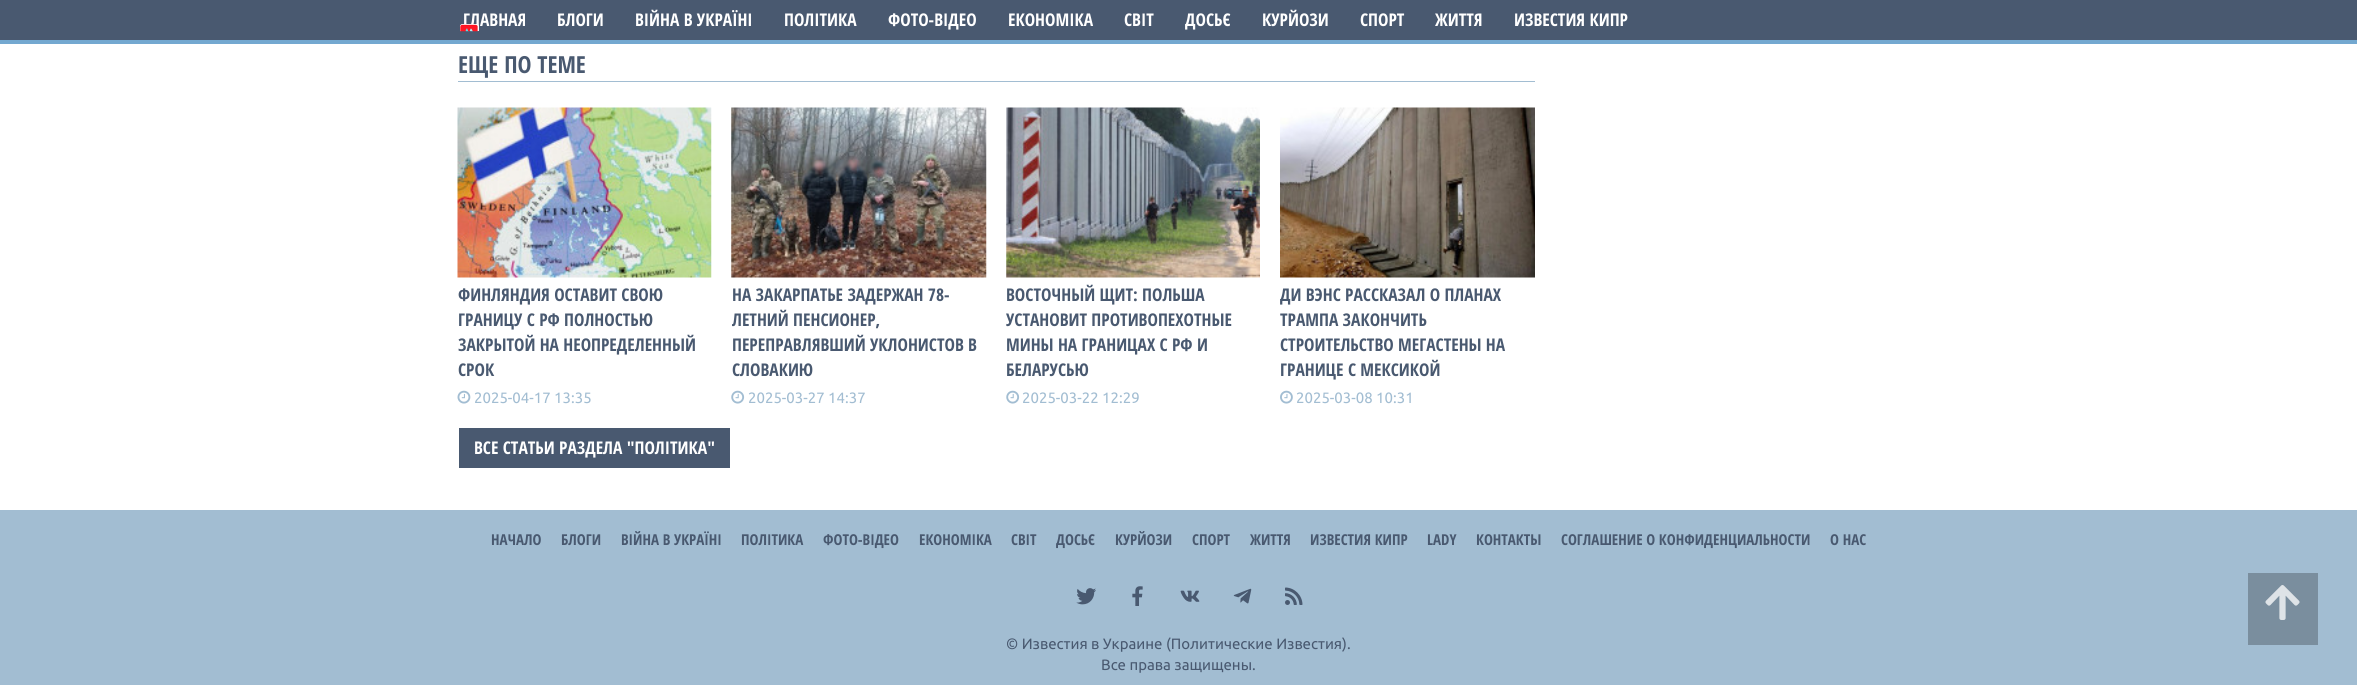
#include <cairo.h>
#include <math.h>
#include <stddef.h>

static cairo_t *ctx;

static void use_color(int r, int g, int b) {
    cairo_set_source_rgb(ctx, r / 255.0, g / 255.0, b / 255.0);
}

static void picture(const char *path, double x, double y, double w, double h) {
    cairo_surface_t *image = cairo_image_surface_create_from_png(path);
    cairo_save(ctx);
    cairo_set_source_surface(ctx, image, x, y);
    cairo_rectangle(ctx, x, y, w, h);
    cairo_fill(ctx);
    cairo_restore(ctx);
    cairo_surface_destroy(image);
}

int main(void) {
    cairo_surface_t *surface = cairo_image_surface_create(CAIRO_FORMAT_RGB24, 2357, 685);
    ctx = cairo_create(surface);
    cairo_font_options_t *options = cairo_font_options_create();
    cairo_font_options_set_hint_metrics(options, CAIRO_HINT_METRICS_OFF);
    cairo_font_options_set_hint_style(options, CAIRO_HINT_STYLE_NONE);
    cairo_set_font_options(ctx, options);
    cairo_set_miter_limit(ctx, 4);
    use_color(255, 255, 255);
    cairo_paint(ctx);
    use_color(73, 89, 112);
    cairo_rectangle(ctx, 0, 0, 2357, 40);
    cairo_fill(ctx);
    use_color(115, 168, 208);
    cairo_rectangle(ctx, 0, 40, 2357, 4);
    cairo_fill(ctx);
    cairo_select_font_face(ctx, "Open Sans Condensed", CAIRO_FONT_SLANT_NORMAL, CAIRO_FONT_WEIGHT_BOLD);
    cairo_set_font_size(ctx, 17.5);
    use_color(255, 255, 255);
    cairo_move_to(ctx, 463, 26);
    cairo_show_text(ctx, "ГЛАВНАЯ");
    cairo_move_to(ctx, 557, 26);
    cairo_show_text(ctx, "БЛОГИ");
    cairo_move_to(ctx, 635, 26);
    cairo_show_text(ctx, "ВІЙНА В УКРАЇНІ");
    cairo_move_to(ctx, 784, 26);
    cairo_show_text(ctx, "ПОЛІТИКА");
    cairo_move_to(ctx, 888, 26);
    cairo_show_text(ctx, "ФОТО-ВІДЕО");
    cairo_move_to(ctx, 1008, 26);
    cairo_show_text(ctx, "ЕКОНОМІКА");
    cairo_move_to(ctx, 1124, 26);
    cairo_show_text(ctx, "СВІТ");
    cairo_move_to(ctx, 1185, 26);
    cairo_show_text(ctx, "ДОСЬЄ");
    cairo_move_to(ctx, 1262, 26);
    cairo_show_text(ctx, "КУРЙОЗИ");
    cairo_move_to(ctx, 1360, 26);
    cairo_show_text(ctx, "СПОРТ");
    cairo_move_to(ctx, 1435, 26);
    cairo_show_text(ctx, "ЖИТТЯ");
    cairo_move_to(ctx, 1514, 26);
    cairo_show_text(ctx, "ИЗВЕСТИЯ КИПР");
    cairo_new_path(ctx);
    cairo_move_to(ctx, 462.5, 24);
    cairo_line_to(ctx, 476.5, 24);
    cairo_curve_to(ctx, 478, 24, 479, 25, 479, 26.5);
    cairo_line_to(ctx, 479, 31);
    cairo_line_to(ctx, 460, 31);
    cairo_line_to(ctx, 460, 26.5);
    cairo_curve_to(ctx, 460, 25, 461, 24, 462.5, 24);
    cairo_close_path(ctx);
    cairo_fill(ctx);
    picture("img1.png", 459, 24, 19, 8);
    use_color(162, 189, 210);
    cairo_rectangle(ctx, 458, 81, 1077, 1);
    cairo_fill(ctx);
    cairo_set_font_size(ctx, 23.5);
    use_color(73, 89, 112);
    cairo_move_to(ctx, 458, 73);
    cairo_show_text(ctx, "ЕЩЕ ПО ТЕМЕ");
    picture("img2.png", 457, 107, 255, 171);
    cairo_set_font_size(ctx, 17.5);
    cairo_move_to(ctx, 458, 301);
    cairo_show_text(ctx, "ФИНЛЯНДИЯ ОСТАВИТ СВОЮ");
    cairo_move_to(ctx, 458, 326);
    cairo_show_text(ctx, "ГРАНИЦУ С РФ ПОЛНОСТЬЮ");
    cairo_move_to(ctx, 458, 351);
    cairo_show_text(ctx, "ЗАКРЫТОЙ НА НЕОПРЕДЕЛЕННЫЙ");
    cairo_move_to(ctx, 458, 376);
    cairo_show_text(ctx, "СРОК");
    picture("img3.png", 457, 390, 14, 14);
    cairo_select_font_face(ctx, "Ubuntu", CAIRO_FONT_SLANT_NORMAL, CAIRO_FONT_WEIGHT_NORMAL);
    cairo_set_font_size(ctx, 15);
    use_color(162, 189, 210);
    cairo_move_to(ctx, 474, 403);
    cairo_show_text(ctx, "2025-04-17 13:35");
    picture("img4.png", 731, 107, 256, 171);
    cairo_select_font_face(ctx, "Open Sans Condensed", CAIRO_FONT_SLANT_NORMAL, CAIRO_FONT_WEIGHT_BOLD);
    cairo_set_font_size(ctx, 17.5);
    use_color(73, 89, 112);
    cairo_move_to(ctx, 732, 301);
    cairo_show_text(ctx, "НА ЗАКАРПАТЬЕ ЗАДЕРЖАН 78-");
    cairo_move_to(ctx, 732, 326);
    cairo_show_text(ctx, "ЛЕТНИЙ ПЕНСИОНЕР,");
    cairo_move_to(ctx, 732, 351);
    cairo_show_text(ctx, "ПЕРЕПРАВЛЯВШИЙ УКЛОНИСТОВ В");
    cairo_move_to(ctx, 732, 376);
    cairo_show_text(ctx, "СЛОВАКИЮ");
    picture("img5.png", 731, 390, 14, 14);
    cairo_select_font_face(ctx, "Ubuntu", CAIRO_FONT_SLANT_NORMAL, CAIRO_FONT_WEIGHT_NORMAL);
    cairo_set_font_size(ctx, 15);
    use_color(162, 189, 210);
    cairo_move_to(ctx, 748, 403);
    cairo_show_text(ctx, "2025-03-27 14:37");
    picture("img6.png", 1006, 107, 254, 171);
    cairo_select_font_face(ctx, "Open Sans Condensed", CAIRO_FONT_SLANT_NORMAL, CAIRO_FONT_WEIGHT_BOLD);
    cairo_set_font_size(ctx, 17.5);
    use_color(73, 89, 112);
    cairo_move_to(ctx, 1006, 301);
    cairo_show_text(ctx, "ВОСТОЧНЫЙ ЩИТ: ПОЛЬША");
    cairo_move_to(ctx, 1006, 326);
    cairo_show_text(ctx, "УСТАНОВИТ ПРОТИВОПЕХОТНЫЕ");
    cairo_move_to(ctx, 1006, 351);
    cairo_show_text(ctx, "МИНЫ НА ГРАНИЦАХ С РФ И");
    cairo_move_to(ctx, 1006, 376);
    cairo_show_text(ctx, "БЕЛАРУСЬЮ");
    picture("img5.png", 1006, 390, 14, 14);
    cairo_select_font_face(ctx, "Ubuntu", CAIRO_FONT_SLANT_NORMAL, CAIRO_FONT_WEIGHT_NORMAL);
    cairo_set_font_size(ctx, 15);
    use_color(162, 189, 210);
    cairo_move_to(ctx, 1022, 403);
    cairo_show_text(ctx, "2025-03-22 12:29");
    picture("img7.png", 1280, 107, 255, 171);
    cairo_select_font_face(ctx, "Open Sans Condensed", CAIRO_FONT_SLANT_NORMAL, CAIRO_FONT_WEIGHT_BOLD);
    cairo_set_font_size(ctx, 17.5);
    use_color(73, 89, 112);
    cairo_move_to(ctx, 1280, 301);
    cairo_show_text(ctx, "ДИ ВЭНС РАССКАЗАЛ О ПЛАНАХ");
    cairo_move_to(ctx, 1280, 326);
    cairo_show_text(ctx, "ТРАМПА ЗАКОНЧИТЬ");
    cairo_move_to(ctx, 1280, 351);
    cairo_show_text(ctx, "СТРОИТЕЛЬСТВО МЕГАСТЕНЫ НА");
    cairo_move_to(ctx, 1280, 376);
    cairo_show_text(ctx, "ГРАНИЦЕ С МЕКСИКОЙ");
    picture("img8.png", 1280, 390, 13, 14);
    cairo_select_font_face(ctx, "Ubuntu", CAIRO_FONT_SLANT_NORMAL, CAIRO_FONT_WEIGHT_NORMAL);
    cairo_set_font_size(ctx, 15);
    use_color(162, 189, 210);
    cairo_move_to(ctx, 1296, 403);
    cairo_show_text(ctx, "2025-03-08 10:31");
    use_color(73, 89, 112);
    cairo_rectangle(ctx, 459, 428, 271, 40);
    cairo_fill(ctx);
    cairo_select_font_face(ctx, "Open Sans Condensed", CAIRO_FONT_SLANT_NORMAL, CAIRO_FONT_WEIGHT_BOLD);
    cairo_set_font_size(ctx, 17.5);
    use_color(255, 255, 255);
    cairo_move_to(ctx, 474, 454);
    cairo_show_text(ctx, "ВСЕ СТАТЬИ РАЗДЕЛА \"ПОЛІТИКА\"");
    use_color(162, 189, 210);
    cairo_rectangle(ctx, 0, 510, 2357, 175);
    cairo_fill(ctx);
    cairo_set_font_size(ctx, 15);
    use_color(73, 89, 112);
    cairo_move_to(ctx, 491, 545);
    cairo_show_text(ctx, "НАЧАЛО");
    cairo_move_to(ctx, 561, 545);
    cairo_show_text(ctx, "БЛОГИ");
    cairo_move_to(ctx, 621, 545);
    cairo_show_text(ctx, "ВІЙНА В УКРАЇНІ");
    cairo_move_to(ctx, 741, 545);
    cairo_show_text(ctx, "ПОЛІТИКА");
    cairo_move_to(ctx, 823, 545);
    cairo_show_text(ctx, "ФОТО-ВІДЕО");
    cairo_move_to(ctx, 919, 545);
    cairo_show_text(ctx, "ЕКОНОМІКА");
    cairo_move_to(ctx, 1011, 545);
    cairo_show_text(ctx, "СВІТ");
    cairo_move_to(ctx, 1056, 545);
    cairo_show_text(ctx, "ДОСЬЄ");
    cairo_move_to(ctx, 1115, 545);
    cairo_show_text(ctx, "КУРЙОЗИ");
    cairo_move_to(ctx, 1192, 545);
    cairo_show_text(ctx, "СПОРТ");
    cairo_move_to(ctx, 1250, 545);
    cairo_show_text(ctx, "ЖИТТЯ");
    cairo_move_to(ctx, 1310, 545);
    cairo_show_text(ctx, "ИЗВЕСТИЯ КИПР");
    cairo_move_to(ctx, 1427, 545);
    cairo_show_text(ctx, "LADY");
    cairo_move_to(ctx, 1476, 545);
    cairo_show_text(ctx, "КОНТАКТЫ");
    cairo_move_to(ctx, 1561, 545);
    cairo_show_text(ctx, "СОГЛАШЕНИЕ О КОНФИДЕНЦИАЛЬНОСТИ");
    cairo_move_to(ctx, 1830, 545);
    cairo_show_text(ctx, "О НАС");
    picture("img9.png", 1076, 588, 20, 17);
    picture("img10.png", 1132, 586, 11, 20);
    picture("img11.png", 1180, 590, 20, 12);
    picture("img12.png", 1233, 588, 19, 16);
    picture("img13.png", 1285, 587, 18, 18);
    cairo_select_font_face(ctx, "Ubuntu", CAIRO_FONT_SLANT_NORMAL, CAIRO_FONT_WEIGHT_NORMAL);
    cairo_move_to(ctx, 1006, 649);
    cairo_show_text(ctx, "© Известия в Украине (Политические Известия).");
    cairo_move_to(ctx, 1101, 670);
    cairo_show_text(ctx, "Все права защищены.");
    use_color(122, 142, 158);
    cairo_rectangle(ctx, 2248, 573, 70, 72);
    cairo_fill(ctx);
    picture("img14.png", 2265, 585, 35, 35);
    cairo_surface_write_to_png(surface, "result.png");
    cairo_font_options_destroy(options);
    cairo_destroy(ctx);
    cairo_surface_destroy(surface);
    return 0;
}
